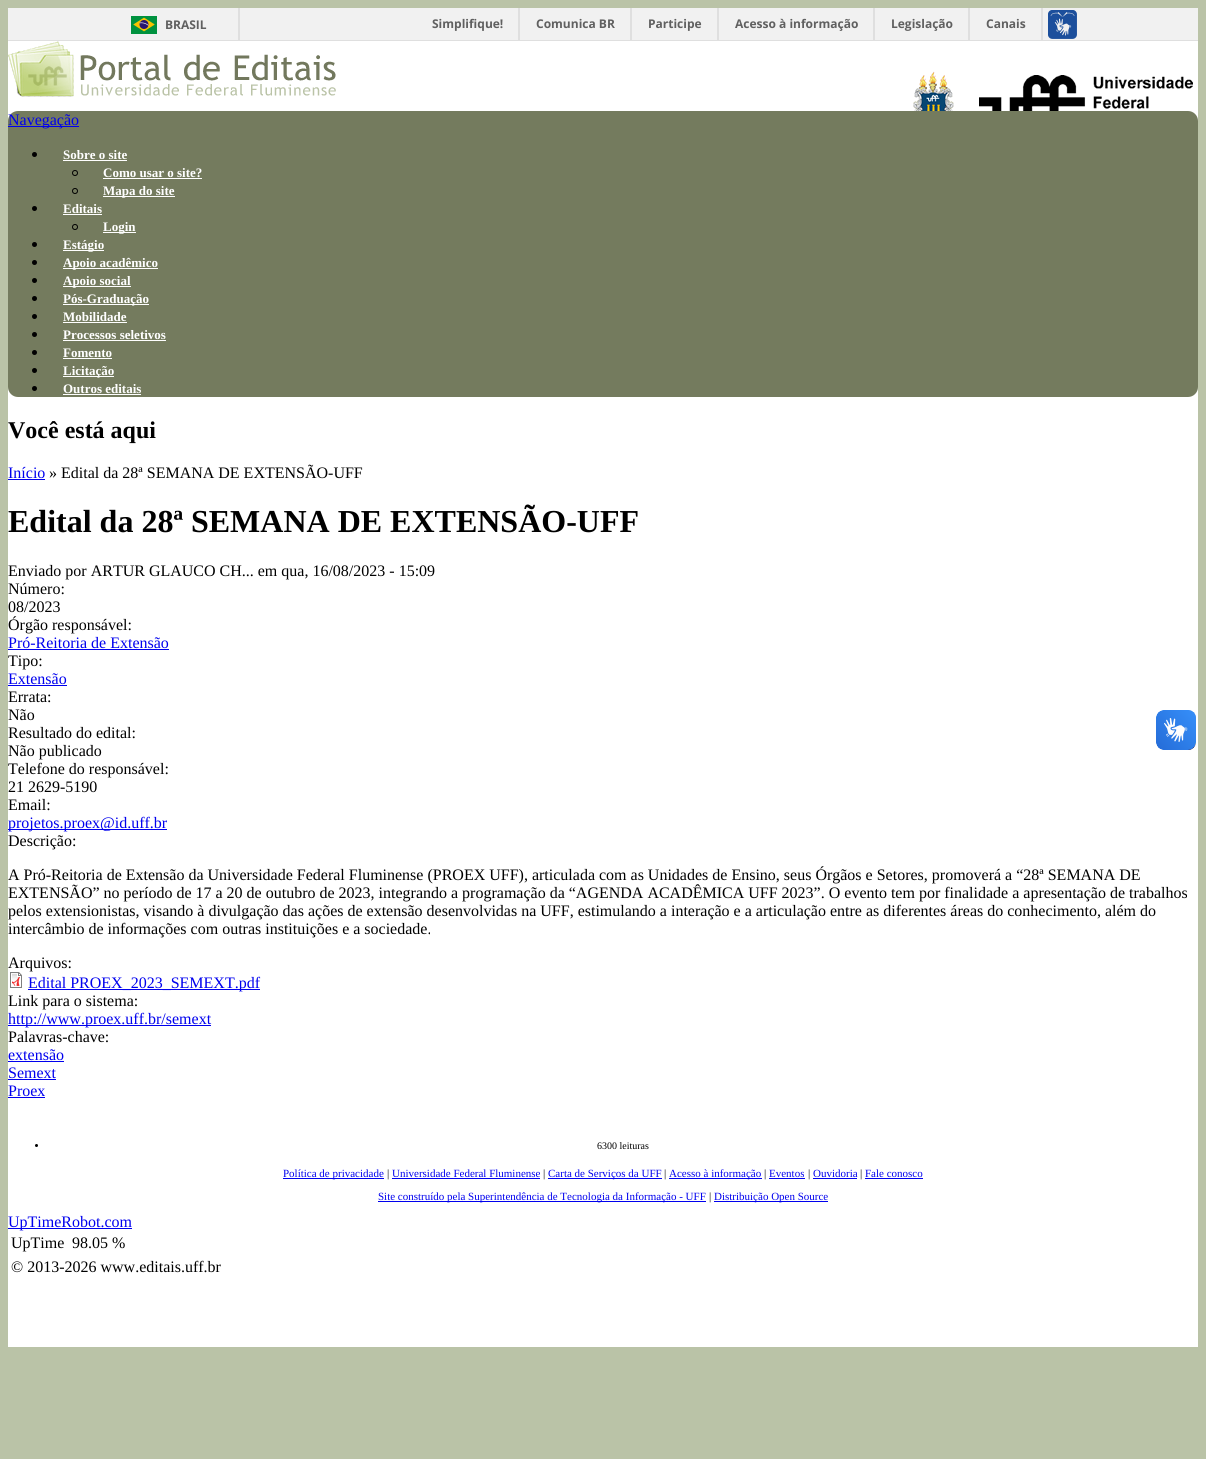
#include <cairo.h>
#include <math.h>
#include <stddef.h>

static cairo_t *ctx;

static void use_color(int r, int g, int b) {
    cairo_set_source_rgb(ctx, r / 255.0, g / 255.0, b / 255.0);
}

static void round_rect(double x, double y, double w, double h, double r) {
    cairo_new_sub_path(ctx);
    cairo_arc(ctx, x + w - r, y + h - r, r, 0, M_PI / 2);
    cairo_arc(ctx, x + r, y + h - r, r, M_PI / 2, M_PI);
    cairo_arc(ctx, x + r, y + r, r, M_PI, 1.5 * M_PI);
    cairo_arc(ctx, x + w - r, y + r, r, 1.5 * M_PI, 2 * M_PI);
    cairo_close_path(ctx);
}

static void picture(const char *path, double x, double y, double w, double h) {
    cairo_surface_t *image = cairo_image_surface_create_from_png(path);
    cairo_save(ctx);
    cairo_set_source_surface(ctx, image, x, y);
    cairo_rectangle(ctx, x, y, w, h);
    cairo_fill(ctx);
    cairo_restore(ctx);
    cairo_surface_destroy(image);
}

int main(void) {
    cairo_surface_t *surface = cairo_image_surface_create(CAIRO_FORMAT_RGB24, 1206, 1459);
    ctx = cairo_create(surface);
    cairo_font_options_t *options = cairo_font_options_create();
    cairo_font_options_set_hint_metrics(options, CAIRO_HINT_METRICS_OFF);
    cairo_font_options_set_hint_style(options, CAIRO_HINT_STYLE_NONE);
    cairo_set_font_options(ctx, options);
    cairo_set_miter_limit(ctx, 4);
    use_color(186, 195, 167);
    cairo_paint(ctx);
    use_color(255, 255, 255);
    cairo_rectangle(ctx, 8, 41, 1190, 1306);
    cairo_fill(ctx);
    use_color(241, 241, 241);
    cairo_rectangle(ctx, 8, 8, 1190, 32);
    cairo_fill(ctx);
    use_color(223, 223, 223);
    cairo_rectangle(ctx, 8, 40, 1190, 1);
    cairo_fill(ctx);
    cairo_rectangle(ctx, 238, 8, 2, 32);
    cairo_fill(ctx);
    picture("img1.png", 131, 16, 26, 18);
    cairo_select_font_face(ctx, "Open Sans", CAIRO_FONT_SLANT_NORMAL, CAIRO_FONT_WEIGHT_BOLD);
    cairo_set_font_size(ctx, 12);
    use_color(96, 96, 96);
    cairo_move_to(ctx, 165, 29);
    cairo_show_text(ctx, "BRASIL");
    use_color(223, 223, 223);
    cairo_rectangle(ctx, 518, 8, 2, 32);
    cairo_fill(ctx);
    use_color(96, 96, 96);
    cairo_move_to(ctx, 432, 28);
    cairo_show_text(ctx, "Simplifique!");
    use_color(223, 223, 223);
    cairo_rectangle(ctx, 630, 8, 2, 32);
    cairo_fill(ctx);
    use_color(96, 96, 96);
    cairo_move_to(ctx, 536, 28);
    cairo_show_text(ctx, "Comunica BR");
    use_color(223, 223, 223);
    cairo_rectangle(ctx, 717, 8, 2, 32);
    cairo_fill(ctx);
    use_color(96, 96, 96);
    cairo_move_to(ctx, 648, 28);
    cairo_show_text(ctx, "Participe");
    use_color(223, 223, 223);
    cairo_rectangle(ctx, 873, 8, 2, 32);
    cairo_fill(ctx);
    use_color(96, 96, 96);
    cairo_move_to(ctx, 735, 28);
    cairo_show_text(ctx, "Acesso à informação");
    use_color(223, 223, 223);
    cairo_rectangle(ctx, 968, 8, 2, 32);
    cairo_fill(ctx);
    use_color(96, 96, 96);
    cairo_move_to(ctx, 891, 28);
    cairo_show_text(ctx, "Legislação");
    use_color(223, 223, 223);
    cairo_rectangle(ctx, 1041, 8, 2, 32);
    cairo_fill(ctx);
    use_color(96, 96, 96);
    cairo_move_to(ctx, 986, 28);
    cairo_show_text(ctx, "Canais");
    picture("img2.png", 1048, 10, 29, 29);
    picture("img3.png", 910, 71, 283, 42);
    picture("img4.png", 8, 41, 328, 56);
    use_color(116, 123, 94);
    round_rect(8, 111, 1190, 286, 10);
    cairo_fill(ctx);
    use_color(0, 0, 238);
    cairo_rectangle(ctx, 8, 126, 71, 1);
    cairo_fill(ctx);
    cairo_select_font_face(ctx, "Liberation Serif", CAIRO_FONT_SLANT_NORMAL, CAIRO_FONT_WEIGHT_NORMAL);
    cairo_set_font_size(ctx, 16);
    cairo_move_to(ctx, 8, 125);
    cairo_show_text(ctx, "Navegação");
    use_color(0, 0, 0);
    cairo_new_path(ctx);
    cairo_arc(ctx, 34.5, 154.5, 2.5, 0, 2 * M_PI);
    cairo_fill(ctx);
    cairo_select_font_face(ctx, "Liberation Serif", CAIRO_FONT_SLANT_NORMAL, CAIRO_FONT_WEIGHT_BOLD);
    cairo_set_font_size(ctx, 13);
    use_color(255, 255, 255);
    cairo_move_to(ctx, 63, 159);
    cairo_show_text(ctx, "Sobre o site");
    cairo_rectangle(ctx, 63, 160, 64, 1);
    cairo_fill(ctx);
    cairo_arc(ctx, 75, 173, 2.5, 0, 2 * M_PI);
    use_color(0, 0, 0);
    cairo_set_line_width(ctx, 1);
    cairo_stroke(ctx);
    use_color(255, 255, 255);
    cairo_move_to(ctx, 103, 177);
    cairo_show_text(ctx, "Como usar o site?");
    cairo_rectangle(ctx, 103, 178, 99, 1);
    cairo_fill(ctx);
    cairo_arc(ctx, 75, 191, 2.5, 0, 2 * M_PI);
    use_color(0, 0, 0);
    cairo_stroke(ctx);
    use_color(255, 255, 255);
    cairo_rectangle(ctx, 103, 196, 72, 1);
    cairo_fill(ctx);
    cairo_move_to(ctx, 103, 195);
    cairo_show_text(ctx, "Mapa do site");
    use_color(0, 0, 0);
    cairo_new_path(ctx);
    cairo_arc(ctx, 34.5, 208.5, 2.5, 0, 2 * M_PI);
    cairo_fill(ctx);
    use_color(255, 255, 255);
    cairo_move_to(ctx, 63, 213);
    cairo_show_text(ctx, "Editais");
    cairo_rectangle(ctx, 63, 214, 39, 1);
    cairo_fill(ctx);
    cairo_arc(ctx, 75, 227, 2.5, 0, 2 * M_PI);
    use_color(0, 0, 0);
    cairo_stroke(ctx);
    use_color(255, 255, 255);
    cairo_rectangle(ctx, 103, 232, 33, 1);
    cairo_fill(ctx);
    cairo_move_to(ctx, 103, 231);
    cairo_show_text(ctx, "Login");
    use_color(0, 0, 0);
    cairo_new_path(ctx);
    cairo_arc(ctx, 34.5, 244.5, 2.5, 0, 2 * M_PI);
    cairo_fill(ctx);
    use_color(255, 255, 255);
    cairo_rectangle(ctx, 63, 250, 41, 1);
    cairo_fill(ctx);
    cairo_move_to(ctx, 63, 249);
    cairo_show_text(ctx, "Estágio");
    use_color(0, 0, 0);
    cairo_new_path(ctx);
    cairo_arc(ctx, 34.5, 262.5, 2.5, 0, 2 * M_PI);
    cairo_fill(ctx);
    use_color(255, 255, 255);
    cairo_rectangle(ctx, 63, 268, 95, 1);
    cairo_fill(ctx);
    cairo_move_to(ctx, 63, 267);
    cairo_show_text(ctx, "Apoio acadêmico");
    use_color(0, 0, 0);
    cairo_new_path(ctx);
    cairo_arc(ctx, 34.5, 280.5, 2.5, 0, 2 * M_PI);
    cairo_fill(ctx);
    use_color(255, 255, 255);
    cairo_rectangle(ctx, 63, 286, 68, 1);
    cairo_fill(ctx);
    cairo_move_to(ctx, 63, 285);
    cairo_show_text(ctx, "Apoio social");
    use_color(0, 0, 0);
    cairo_new_path(ctx);
    cairo_arc(ctx, 34.5, 298.5, 2.5, 0, 2 * M_PI);
    cairo_fill(ctx);
    use_color(255, 255, 255);
    cairo_rectangle(ctx, 63, 304, 86, 1);
    cairo_fill(ctx);
    cairo_move_to(ctx, 63, 303);
    cairo_show_text(ctx, "Pós-Graduação");
    use_color(0, 0, 0);
    cairo_new_path(ctx);
    cairo_arc(ctx, 34.5, 316.5, 2.5, 0, 2 * M_PI);
    cairo_fill(ctx);
    use_color(255, 255, 255);
    cairo_move_to(ctx, 63, 321);
    cairo_show_text(ctx, "Mobilidade");
    cairo_rectangle(ctx, 63, 322, 64, 1);
    cairo_fill(ctx);
    use_color(0, 0, 0);
    cairo_arc(ctx, 34.5, 334.5, 2.5, 0, 2 * M_PI);
    cairo_fill(ctx);
    use_color(255, 255, 255);
    cairo_move_to(ctx, 63, 339);
    cairo_show_text(ctx, "Processos seletivos");
    cairo_rectangle(ctx, 63, 340, 103, 1);
    cairo_fill(ctx);
    use_color(0, 0, 0);
    cairo_arc(ctx, 34.5, 352.5, 2.5, 0, 2 * M_PI);
    cairo_fill(ctx);
    use_color(255, 255, 255);
    cairo_move_to(ctx, 63, 357);
    cairo_show_text(ctx, "Fomento");
    cairo_rectangle(ctx, 63, 358, 49, 1);
    cairo_fill(ctx);
    use_color(0, 0, 0);
    cairo_arc(ctx, 34.5, 370.5, 2.5, 0, 2 * M_PI);
    cairo_fill(ctx);
    use_color(255, 255, 255);
    cairo_rectangle(ctx, 63, 376, 51, 1);
    cairo_fill(ctx);
    cairo_move_to(ctx, 63, 375);
    cairo_show_text(ctx, "Licitação");
    use_color(0, 0, 0);
    cairo_new_path(ctx);
    cairo_arc(ctx, 34.5, 388.5, 2.5, 0, 2 * M_PI);
    cairo_fill(ctx);
    use_color(255, 255, 255);
    cairo_move_to(ctx, 63, 393);
    cairo_show_text(ctx, "Outros editais");
    cairo_rectangle(ctx, 63, 394, 78, 1);
    cairo_fill(ctx);
    cairo_set_font_size(ctx, 24);
    use_color(0, 0, 0);
    cairo_move_to(ctx, 8, 438);
    cairo_show_text(ctx, "Você está aqui");
    cairo_select_font_face(ctx, "Liberation Serif", CAIRO_FONT_SLANT_NORMAL, CAIRO_FONT_WEIGHT_NORMAL);
    cairo_set_font_size(ctx, 16);
    use_color(0, 0, 238);
    cairo_move_to(ctx, 8, 478);
    cairo_show_text(ctx, "Início");
    cairo_rectangle(ctx, 8, 479, 37, 1);
    cairo_fill(ctx);
    use_color(0, 0, 0);
    cairo_move_to(ctx, 49, 478);
    cairo_show_text(ctx, "» Edital da 28ª SEMANA DE EXTENSÃO-UFF");
    cairo_select_font_face(ctx, "Liberation Serif", CAIRO_FONT_SLANT_NORMAL, CAIRO_FONT_WEIGHT_BOLD);
    cairo_set_font_size(ctx, 32);
    cairo_move_to(ctx, 8, 532);
    cairo_show_text(ctx, "Edital da 28ª SEMANA DE EXTENSÃO-UFF");
    cairo_select_font_face(ctx, "Liberation Serif", CAIRO_FONT_SLANT_NORMAL, CAIRO_FONT_WEIGHT_NORMAL);
    cairo_set_font_size(ctx, 16);
    cairo_move_to(ctx, 8, 576);
    cairo_show_text(ctx, "Enviado por ARTUR GLAUCO CH... em qua, 16/08/2023 - 15:09");
    cairo_move_to(ctx, 8, 594);
    cairo_show_text(ctx, "Número:");
    cairo_move_to(ctx, 8, 612);
    cairo_show_text(ctx, "08/2023");
    cairo_move_to(ctx, 8, 630);
    cairo_show_text(ctx, "Órgão responsável:");
    use_color(0, 0, 238);
    cairo_move_to(ctx, 8, 648);
    cairo_show_text(ctx, "Pró-Reitoria de Extensão");
    cairo_rectangle(ctx, 8, 649, 161, 1);
    cairo_fill(ctx);
    use_color(0, 0, 0);
    cairo_move_to(ctx, 8, 666);
    cairo_show_text(ctx, "Tipo:");
    use_color(0, 0, 238);
    cairo_move_to(ctx, 8, 684);
    cairo_show_text(ctx, "Extensão");
    cairo_rectangle(ctx, 8, 685, 59, 1);
    cairo_fill(ctx);
    use_color(0, 0, 0);
    cairo_move_to(ctx, 8, 702);
    cairo_show_text(ctx, "Errata:");
    cairo_move_to(ctx, 8, 720);
    cairo_show_text(ctx, "Não");
    cairo_move_to(ctx, 8, 738);
    cairo_show_text(ctx, "Resultado do edital:");
    cairo_move_to(ctx, 8, 756);
    cairo_show_text(ctx, "Não publicado");
    cairo_move_to(ctx, 8, 774);
    cairo_show_text(ctx, "Telefone do responsável:");
    cairo_move_to(ctx, 8, 792);
    cairo_show_text(ctx, "21 2629-5190");
    cairo_move_to(ctx, 8, 810);
    cairo_show_text(ctx, "Email:");
    use_color(0, 0, 238);
    cairo_rectangle(ctx, 8, 829, 159, 1);
    cairo_fill(ctx);
    cairo_move_to(ctx, 8, 828);
    cairo_show_text(ctx, "projetos.proex@id.uff.br");
    use_color(0, 0, 0);
    cairo_move_to(ctx, 8, 846);
    cairo_show_text(ctx, "Descrição:");
    cairo_move_to(ctx, 8, 880);
    cairo_show_text(ctx, "A Pró-Reitoria de Extensão da Universidade Federal Fluminense (PROEX UFF), articulada com as Unidades de Ensino, seus Órgãos e Setores, promoverá a “28ª SEMANA DE");
    cairo_move_to(ctx, 8, 898);
    cairo_show_text(ctx, "EXTENSÃO” no período de 17 a 20 de outubro de 2023, integrando a programação da “AGENDA ACADÊMICA UFF 2023”. O evento tem por finalidade a apresentação de trabalhos");
    cairo_move_to(ctx, 8, 916);
    cairo_show_text(ctx, "pelos extensionistas, visando à divulgação das ações de extensão desenvolvidas na UFF, estimulando a interação e a articulação entre as diferentes áreas do conhecimento, além do");
    cairo_move_to(ctx, 8, 934);
    cairo_show_text(ctx, "intercâmbio de informações com outras instituições e a sociedade.");
    cairo_move_to(ctx, 8, 968);
    cairo_show_text(ctx, "Arquivos:");
    picture("img5.png", 10, 972, 12, 16);
    use_color(0, 0, 238);
    cairo_rectangle(ctx, 28, 989, 232, 1);
    cairo_fill(ctx);
    cairo_move_to(ctx, 28, 988);
    cairo_show_text(ctx, "Edital PROEX_2023_SEMEXT.pdf");
    use_color(0, 0, 0);
    cairo_move_to(ctx, 8, 1006);
    cairo_show_text(ctx, "Link para o sistema:");
    use_color(0, 0, 238);
    cairo_rectangle(ctx, 8, 1025, 203, 1);
    cairo_fill(ctx);
    cairo_move_to(ctx, 8, 1024);
    cairo_show_text(ctx, "http://www.proex.uff.br/semext");
    use_color(0, 0, 0);
    cairo_move_to(ctx, 8, 1042);
    cairo_show_text(ctx, "Palavras-chave:");
    use_color(0, 0, 238);
    cairo_move_to(ctx, 8, 1060);
    cairo_show_text(ctx, "extensão");
    cairo_rectangle(ctx, 8, 1061, 56, 1);
    cairo_fill(ctx);
    cairo_move_to(ctx, 8, 1078);
    cairo_show_text(ctx, "Semext");
    cairo_rectangle(ctx, 8, 1079, 48, 1);
    cairo_fill(ctx);
    cairo_move_to(ctx, 8, 1096);
    cairo_show_text(ctx, "Proex");
    cairo_rectangle(ctx, 8, 1097, 37, 1);
    cairo_fill(ctx);
    use_color(0, 0, 0);
    cairo_arc(ctx, 36.5, 1145.5, 1.5, 0, 2 * M_PI);
    cairo_fill(ctx);
    cairo_set_font_size(ctx, 10);
    cairo_move_to(ctx, 597, 1149);
    cairo_show_text(ctx, "6300 leituras");
    use_color(0, 0, 238);
    cairo_rectangle(ctx, 283, 1178, 101, 1);
    cairo_fill(ctx);
    cairo_set_font_size(ctx, 11);
    cairo_move_to(ctx, 283, 1177);
    cairo_show_text(ctx, "Política de privacidade");
    use_color(0, 0, 0);
    cairo_move_to(ctx, 387, 1177);
    cairo_show_text(ctx, "|");
    use_color(0, 0, 238);
    cairo_move_to(ctx, 392, 1177);
    cairo_show_text(ctx, "Universidade Federal Fluminense");
    cairo_rectangle(ctx, 392, 1178, 148, 1);
    cairo_fill(ctx);
    use_color(0, 0, 0);
    cairo_move_to(ctx, 543, 1177);
    cairo_show_text(ctx, "|");
    use_color(0, 0, 238);
    cairo_rectangle(ctx, 548, 1178, 114, 1);
    cairo_fill(ctx);
    cairo_move_to(ctx, 548, 1177);
    cairo_show_text(ctx, "Carta de Serviços da UFF");
    use_color(0, 0, 0);
    cairo_move_to(ctx, 664, 1177);
    cairo_show_text(ctx, "|");
    use_color(0, 0, 238);
    cairo_rectangle(ctx, 669, 1178, 93, 1);
    cairo_fill(ctx);
    cairo_move_to(ctx, 669, 1177);
    cairo_show_text(ctx, "Acesso à informação");
    use_color(0, 0, 0);
    cairo_move_to(ctx, 764, 1177);
    cairo_show_text(ctx, "|");
    use_color(0, 0, 238);
    cairo_move_to(ctx, 769, 1177);
    cairo_show_text(ctx, "Eventos");
    cairo_rectangle(ctx, 769, 1178, 36, 1);
    cairo_fill(ctx);
    use_color(0, 0, 0);
    cairo_move_to(ctx, 808, 1177);
    cairo_show_text(ctx, "|");
    use_color(0, 0, 238);
    cairo_move_to(ctx, 813, 1177);
    cairo_show_text(ctx, "Ouvidoria");
    cairo_rectangle(ctx, 813, 1178, 44, 1);
    cairo_fill(ctx);
    use_color(0, 0, 0);
    cairo_move_to(ctx, 860, 1177);
    cairo_show_text(ctx, "|");
    use_color(0, 0, 238);
    cairo_move_to(ctx, 865, 1177);
    cairo_show_text(ctx, "Fale conosco");
    cairo_rectangle(ctx, 865, 1178, 58, 1);
    cairo_fill(ctx);
    cairo_rectangle(ctx, 378, 1201, 328, 1);
    cairo_fill(ctx);
    cairo_move_to(ctx, 378, 1200);
    cairo_show_text(ctx, "Site construído pela Superintendência de Tecnologia da Informação - UFF");
    use_color(0, 0, 0);
    cairo_move_to(ctx, 709, 1200);
    cairo_show_text(ctx, "|");
    use_color(0, 0, 238);
    cairo_rectangle(ctx, 714, 1201, 114, 1);
    cairo_fill(ctx);
    cairo_move_to(ctx, 714, 1200);
    cairo_show_text(ctx, "Distribuição Open Source");
    cairo_rectangle(ctx, 8, 1228, 124, 1);
    cairo_fill(ctx);
    cairo_set_font_size(ctx, 16);
    cairo_move_to(ctx, 8, 1227);
    cairo_show_text(ctx, "UpTimeRobot.com");
    use_color(0, 0, 0);
    cairo_move_to(ctx, 11, 1248);
    cairo_show_text(ctx, "UpTime");
    cairo_move_to(ctx, 72, 1248);
    cairo_show_text(ctx, "98.05 %");
    cairo_move_to(ctx, 11, 1272);
    cairo_show_text(ctx, "© 2013-2026 www.editais.uff.br");
    picture("img6.png", 1156, 710, 40, 40);
    picture("img7.png", 1156, 710, 40, 40);
    cairo_surface_write_to_png(surface, "result.png");
    cairo_font_options_destroy(options);
    cairo_destroy(ctx);
    cairo_surface_destroy(surface);
    return 0;
}
